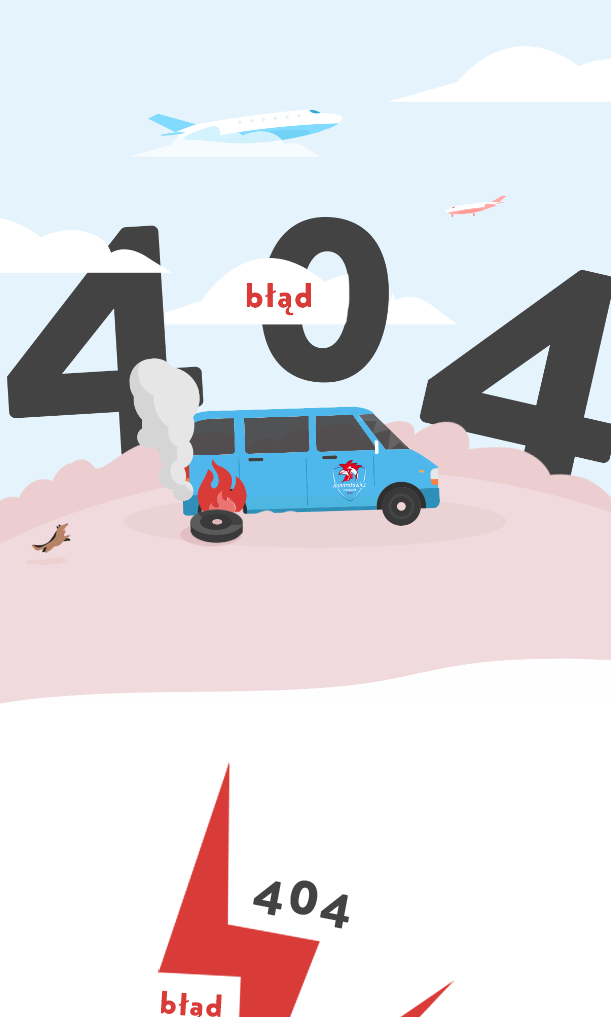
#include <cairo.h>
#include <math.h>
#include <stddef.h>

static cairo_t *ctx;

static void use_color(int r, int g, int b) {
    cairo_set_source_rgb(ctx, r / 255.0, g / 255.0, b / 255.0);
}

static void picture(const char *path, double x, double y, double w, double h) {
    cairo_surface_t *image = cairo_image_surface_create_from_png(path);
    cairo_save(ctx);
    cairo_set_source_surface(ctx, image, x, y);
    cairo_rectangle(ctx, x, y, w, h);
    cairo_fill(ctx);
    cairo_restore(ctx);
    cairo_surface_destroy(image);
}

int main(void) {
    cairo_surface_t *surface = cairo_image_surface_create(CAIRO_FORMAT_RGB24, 611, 1017);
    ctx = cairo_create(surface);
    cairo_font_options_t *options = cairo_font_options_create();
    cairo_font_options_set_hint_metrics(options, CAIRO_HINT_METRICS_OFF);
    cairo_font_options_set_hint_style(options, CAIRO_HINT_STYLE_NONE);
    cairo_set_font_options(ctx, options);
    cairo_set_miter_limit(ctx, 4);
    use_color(255, 255, 255);
    cairo_paint(ctx);
    picture("img1.png", 0, 0, 611, 704);
    picture("img2.png", 158, 762, 296, 255);
    cairo_surface_write_to_png(surface, "result.png");
    cairo_font_options_destroy(options);
    cairo_destroy(ctx);
    cairo_surface_destroy(surface);
    return 0;
}
